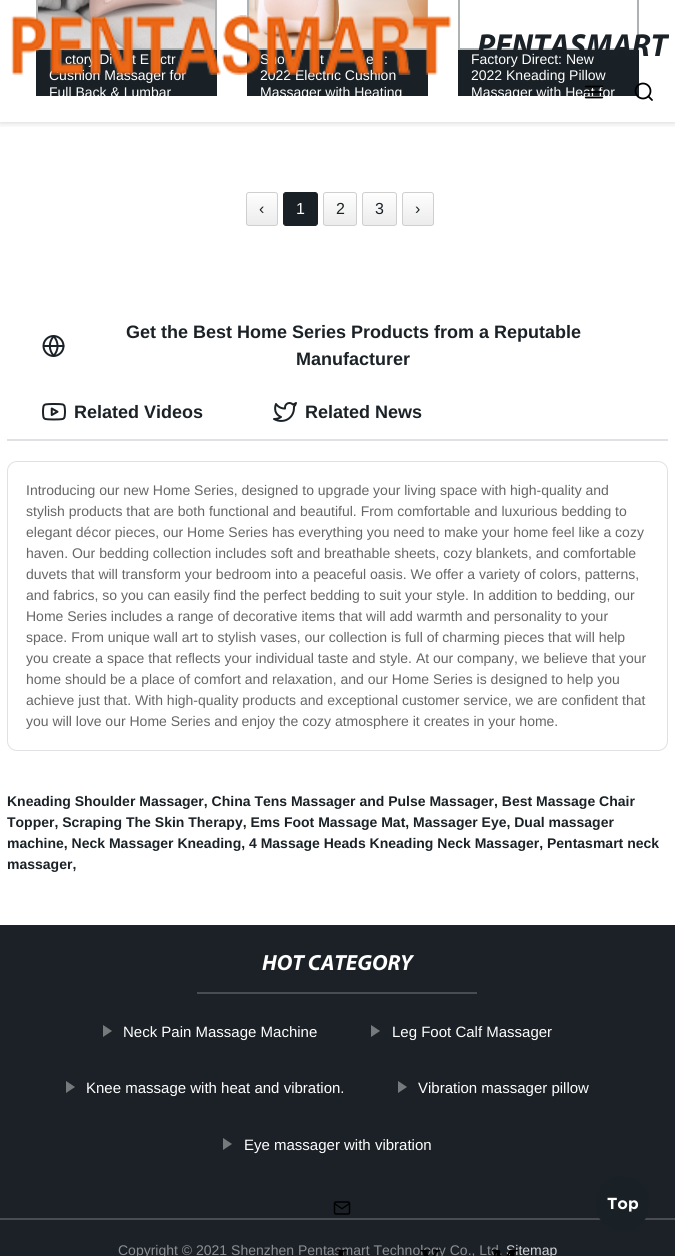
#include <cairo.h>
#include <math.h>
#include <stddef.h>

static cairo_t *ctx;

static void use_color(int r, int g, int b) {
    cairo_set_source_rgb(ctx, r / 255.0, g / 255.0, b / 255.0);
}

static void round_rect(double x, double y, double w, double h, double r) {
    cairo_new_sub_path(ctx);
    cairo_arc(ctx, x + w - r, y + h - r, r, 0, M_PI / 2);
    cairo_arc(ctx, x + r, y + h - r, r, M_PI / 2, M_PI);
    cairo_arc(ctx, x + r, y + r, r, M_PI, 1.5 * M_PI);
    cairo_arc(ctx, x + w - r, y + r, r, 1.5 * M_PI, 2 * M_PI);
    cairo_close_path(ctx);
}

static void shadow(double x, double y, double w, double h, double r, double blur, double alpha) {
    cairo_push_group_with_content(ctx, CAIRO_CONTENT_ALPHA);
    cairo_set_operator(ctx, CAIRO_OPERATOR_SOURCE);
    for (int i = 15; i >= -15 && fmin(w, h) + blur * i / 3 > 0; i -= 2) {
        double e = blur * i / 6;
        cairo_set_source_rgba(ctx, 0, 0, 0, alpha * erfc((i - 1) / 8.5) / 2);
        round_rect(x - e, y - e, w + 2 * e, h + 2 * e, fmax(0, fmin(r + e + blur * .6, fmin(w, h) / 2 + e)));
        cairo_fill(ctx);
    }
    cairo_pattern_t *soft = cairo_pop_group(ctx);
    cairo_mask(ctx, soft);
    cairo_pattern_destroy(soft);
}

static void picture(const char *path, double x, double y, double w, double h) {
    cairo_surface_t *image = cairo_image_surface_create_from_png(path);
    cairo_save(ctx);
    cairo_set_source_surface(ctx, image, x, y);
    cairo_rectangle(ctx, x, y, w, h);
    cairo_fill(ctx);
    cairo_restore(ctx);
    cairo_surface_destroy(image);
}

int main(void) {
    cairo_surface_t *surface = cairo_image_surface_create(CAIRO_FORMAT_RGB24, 675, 1256);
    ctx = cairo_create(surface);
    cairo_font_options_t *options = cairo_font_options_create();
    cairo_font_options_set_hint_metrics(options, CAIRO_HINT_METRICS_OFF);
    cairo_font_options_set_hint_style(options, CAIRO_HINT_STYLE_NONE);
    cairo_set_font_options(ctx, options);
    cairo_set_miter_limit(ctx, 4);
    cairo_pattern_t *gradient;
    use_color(255, 255, 255);
    cairo_paint(ctx);
    cairo_rectangle(ctx, 37, -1, 179, 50);
    use_color(175, 178, 179);
    cairo_stroke(ctx);
    picture("img3.png", 38, 0, 177, 48);
    use_color(26, 33, 38);
    cairo_rectangle(ctx, 36, 50, 181, 46);
    cairo_fill(ctx);
    cairo_rectangle(ctx, 248, -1, 179, 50);
    use_color(175, 178, 179);
    cairo_stroke(ctx);
    picture("img4.png", 249, 0, 178, 48);
    use_color(26, 33, 38);
    cairo_rectangle(ctx, 247, 50, 181, 46);
    cairo_fill(ctx);
    cairo_rectangle(ctx, 459, -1, 179, 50);
    use_color(175, 178, 179);
    cairo_stroke(ctx);
    use_color(26, 33, 38);
    cairo_rectangle(ctx, 458, 50, 181, 46);
    cairo_fill(ctx);
    cairo_save(ctx);
    cairo_rectangle(ctx, 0, 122, 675, 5);
    cairo_clip(ctx);
    use_color(0, 0, 0);
    shadow(0, 0, 675, 122, 0, 4, 0.2);
    cairo_restore(ctx);
    cairo_select_font_face(ctx, "Liberation Sans", CAIRO_FONT_SLANT_NORMAL, CAIRO_FONT_WEIGHT_NORMAL);
    cairo_set_font_size(ctx, 14);
    use_color(255, 255, 255);
    cairo_move_to(ctx, 65, 64);
    cairo_show_text(ctx, "ctory Di");
    cairo_move_to(ctx, 132, 64);
    cairo_show_text(ctx, "t E");
    cairo_move_to(ctx, 160, 64);
    cairo_show_text(ctx, "ctr");
    cairo_move_to(ctx, 49, 80);
    cairo_show_text(ctx, "Cushion Massager for");
    cairo_move_to(ctx, 260, 64);
    cairo_show_text(ctx, "Sho");
    cairo_move_to(ctx, 320, 64);
    cairo_show_text(ctx, "t");
    cairo_move_to(ctx, 366, 64);
    cairo_show_text(ctx, "e");
    cairo_move_to(ctx, 384, 64);
    cairo_show_text(ctx, ":");
    cairo_move_to(ctx, 260, 80);
    cairo_show_text(ctx, "2022 Electric Cushion");
    picture("img1.png", 11, 15, 440, 60);
    cairo_select_font_face(ctx, "Myriad", CAIRO_FONT_SLANT_ITALIC, CAIRO_FONT_WEIGHT_BOLD);
    cairo_set_font_size(ctx, 32);
    use_color(27, 34, 39);
    cairo_move_to(ctx, 477, 56);
    cairo_show_text(ctx, "PENTASMART");
    cairo_save(ctx);
    cairo_rectangle(ctx, 458, 50, 181, 46);
    cairo_clip(ctx);
    cairo_select_font_face(ctx, "Liberation Sans", CAIRO_FONT_SLANT_NORMAL, CAIRO_FONT_WEIGHT_NORMAL);
    cairo_set_font_size(ctx, 14);
    use_color(255, 255, 255);
    cairo_move_to(ctx, 471, 97);
    cairo_show_text(ctx, "Massager with Heat for");
    cairo_restore(ctx);
    picture("img2.png", 584, 85, 20, 14);
    cairo_arc(ctx, 643, 91, 7.5, 0, 2 * M_PI);
    use_color(0, 0, 0);
    cairo_set_line_width(ctx, 1.8);
    cairo_stroke(ctx);
    cairo_new_path(ctx);
    cairo_move_to(ctx, 652, 100);
    cairo_line_to(ctx, 648.5, 96.5);
    cairo_set_line_cap(ctx, CAIRO_LINE_CAP_ROUND);
    cairo_set_line_join(ctx, CAIRO_LINE_JOIN_ROUND);
    cairo_stroke(ctx);
    cairo_save(ctx);
    cairo_rectangle(ctx, 36, 50, 181, 46);
    cairo_clip(ctx);
    cairo_select_font_face(ctx, "Liberation Sans", CAIRO_FONT_SLANT_NORMAL, CAIRO_FONT_WEIGHT_NORMAL);
    cairo_set_font_size(ctx, 14);
    use_color(255, 255, 255);
    cairo_move_to(ctx, 49, 97);
    cairo_show_text(ctx, "Full Back & Lumbar");
    cairo_restore(ctx);
    cairo_save(ctx);
    cairo_rectangle(ctx, 247, 50, 181, 46);
    cairo_clip(ctx);
    cairo_select_font_face(ctx, "Liberation Sans", CAIRO_FONT_SLANT_NORMAL, CAIRO_FONT_WEIGHT_NORMAL);
    cairo_set_font_size(ctx, 14);
    use_color(255, 255, 255);
    cairo_move_to(ctx, 260, 97);
    cairo_show_text(ctx, "Massager with Heating");
    cairo_restore(ctx);
    cairo_select_font_face(ctx, "Liberation Sans", CAIRO_FONT_SLANT_NORMAL, CAIRO_FONT_WEIGHT_NORMAL);
    cairo_set_font_size(ctx, 14);
    use_color(255, 255, 255);
    cairo_move_to(ctx, 471, 64);
    cairo_show_text(ctx, "Factory Direct: New");
    cairo_move_to(ctx, 471, 80);
    cairo_show_text(ctx, "2022 Kneading Pillow");
    cairo_save(ctx);
    round_rect(246, 192, 32, 34, 3);
    cairo_clip(ctx);
    gradient = cairo_pattern_create_linear(247, 193, 247, 225);
    cairo_pattern_add_color_stop_rgba(gradient, 0, 0.996, 0.996, 0.996, 1);
    cairo_pattern_add_color_stop_rgba(gradient, 1, 0.925, 0.925, 0.925, 1);
    cairo_set_source(ctx, gradient);
    cairo_pattern_destroy(gradient);
    cairo_rectangle(ctx, 246, 193, 32, 32);
    cairo_fill(ctx);
    cairo_restore(ctx);
    round_rect(246.5, 192.5, 31, 33, 2.5);
    use_color(207, 207, 207);
    cairo_set_line_width(ctx, 1);
    cairo_set_line_cap(ctx, CAIRO_LINE_CAP_BUTT);
    cairo_set_line_join(ctx, CAIRO_LINE_JOIN_MITER);
    cairo_stroke(ctx);
    cairo_set_font_size(ctx, 16);
    use_color(27, 34, 39);
    cairo_move_to(ctx, 259, 214);
    cairo_show_text(ctx, "‹");
    use_color(26, 33, 38);
    round_rect(283.5, 192.5, 34, 33, 2.5);
    cairo_fill_preserve(ctx);
    cairo_stroke(ctx);
    use_color(255, 255, 255);
    cairo_move_to(ctx, 296, 214);
    cairo_show_text(ctx, "1");
    cairo_save(ctx);
    round_rect(323, 192, 34, 34, 3);
    cairo_clip(ctx);
    gradient = cairo_pattern_create_linear(324, 193, 324, 225);
    cairo_pattern_add_color_stop_rgba(gradient, 0, 0.996, 0.996, 0.996, 1);
    cairo_pattern_add_color_stop_rgba(gradient, 1, 0.925, 0.925, 0.925, 1);
    cairo_set_source(ctx, gradient);
    cairo_pattern_destroy(gradient);
    cairo_rectangle(ctx, 323, 193, 34, 32);
    cairo_fill(ctx);
    cairo_restore(ctx);
    round_rect(323.5, 192.5, 33, 33, 2.5);
    use_color(207, 207, 207);
    cairo_stroke(ctx);
    use_color(27, 34, 39);
    cairo_move_to(ctx, 336, 214);
    cairo_show_text(ctx, "2");
    cairo_save(ctx);
    round_rect(362, 192, 35, 34, 3);
    cairo_clip(ctx);
    gradient = cairo_pattern_create_linear(363, 193, 363, 225);
    cairo_pattern_add_color_stop_rgba(gradient, 0, 0.996, 0.996, 0.996, 1);
    cairo_pattern_add_color_stop_rgba(gradient, 1, 0.925, 0.925, 0.925, 1);
    cairo_set_source(ctx, gradient);
    cairo_pattern_destroy(gradient);
    cairo_rectangle(ctx, 362, 193, 35, 32);
    cairo_fill(ctx);
    cairo_restore(ctx);
    round_rect(362.5, 192.5, 34, 33, 2.5);
    use_color(207, 207, 207);
    cairo_stroke(ctx);
    use_color(27, 34, 39);
    cairo_move_to(ctx, 375, 214);
    cairo_show_text(ctx, "3");
    cairo_save(ctx);
    round_rect(402, 192, 32, 34, 3);
    cairo_clip(ctx);
    gradient = cairo_pattern_create_linear(403, 193, 403, 225);
    cairo_pattern_add_color_stop_rgba(gradient, 0, 0.996, 0.996, 0.996, 1);
    cairo_pattern_add_color_stop_rgba(gradient, 1, 0.925, 0.925, 0.925, 1);
    cairo_set_source(ctx, gradient);
    cairo_pattern_destroy(gradient);
    cairo_rectangle(ctx, 402, 193, 32, 32);
    cairo_fill(ctx);
    cairo_restore(ctx);
    round_rect(402.5, 192.5, 31, 33, 2.5);
    use_color(207, 207, 207);
    cairo_stroke(ctx);
    use_color(27, 34, 39);
    cairo_move_to(ctx, 415, 214);
    cairo_show_text(ctx, "›");
    cairo_select_font_face(ctx, "Liberation Sans", CAIRO_FONT_SLANT_NORMAL, CAIRO_FONT_WEIGHT_BOLD);
    cairo_set_font_size(ctx, 18);
    cairo_move_to(ctx, 126, 338);
    cairo_show_text(ctx, "Get the Best Home Series Products from a Reputable");
    picture("img5.png", 42, 335, 23, 22);
    cairo_move_to(ctx, 296, 365);
    cairo_show_text(ctx, "Manufacturer");
    picture("img6.png", 42, 403, 24, 18);
    cairo_move_to(ctx, 74, 418);
    cairo_show_text(ctx, "Related Videos");
    picture("img7.png", 273, 402, 24, 20);
    cairo_move_to(ctx, 305, 418);
    cairo_show_text(ctx, "Related News");
    use_color(224, 225, 229);
    cairo_rectangle(ctx, 7, 439, 661, 2);
    cairo_fill(ctx);
    round_rect(7.5, 461.5, 660, 289, 9.5);
    cairo_stroke(ctx);
    cairo_select_font_face(ctx, "Liberation Sans", CAIRO_FONT_SLANT_NORMAL, CAIRO_FONT_WEIGHT_NORMAL);
    cairo_set_font_size(ctx, 14);
    use_color(102, 102, 102);
    cairo_move_to(ctx, 26, 495);
    cairo_show_text(ctx, "Introducing our new Home Series, designed to upgrade your living space with high-quality and");
    cairo_move_to(ctx, 26, 516);
    cairo_show_text(ctx, "stylish products that are both functional and beautiful. From comfortable and luxurious bedding to");
    cairo_move_to(ctx, 26, 537);
    cairo_show_text(ctx, "elegant décor pieces, our Home Series has everything you need to make your home feel like a cozy");
    cairo_move_to(ctx, 26, 558);
    cairo_show_text(ctx, "haven. Our bedding collection includes soft and breathable sheets, cozy blankets, and comfortable");
    cairo_move_to(ctx, 26, 579);
    cairo_show_text(ctx, "duvets that will transform your bedroom into a peaceful oasis. We offer a variety of colors, patterns,");
    cairo_move_to(ctx, 26, 600);
    cairo_show_text(ctx, "and fabrics, so you can easily find the perfect bedding to suit your style. In addition to bedding, our");
    cairo_move_to(ctx, 26, 621);
    cairo_show_text(ctx, "Home Series includes a range of decorative items that will add warmth and personality to your");
    cairo_move_to(ctx, 26, 642);
    cairo_show_text(ctx, "space. From unique wall art to stylish vases, our collection is full of charming pieces that will help");
    cairo_move_to(ctx, 26, 663);
    cairo_show_text(ctx, "you create a space that reflects your individual taste and style. At our company, we believe that your");
    cairo_move_to(ctx, 26, 684);
    cairo_show_text(ctx, "home should be a place of comfort and relaxation, and our Home Series is designed to help you");
    cairo_move_to(ctx, 26, 705);
    cairo_show_text(ctx, "achieve just that. With high-quality products and exceptional customer service, we are confident that");
    cairo_move_to(ctx, 26, 726);
    cairo_show_text(ctx, "you will love our Home Series and enjoy the cozy atmosphere it creates in your home.");
    cairo_select_font_face(ctx, "Liberation Sans", CAIRO_FONT_SLANT_NORMAL, CAIRO_FONT_WEIGHT_BOLD);
    use_color(27, 34, 39);
    cairo_move_to(ctx, 7, 806);
    cairo_show_text(ctx, "Kneading Shoulder Massager, China Tens Massager and Pulse Massager, Best Massage Chair");
    cairo_move_to(ctx, 7, 827);
    cairo_show_text(ctx, "Topper, Scraping The Skin Therapy, Ems Foot Massage Mat, Massager Eye, Dual massager");
    cairo_move_to(ctx, 7, 848);
    cairo_show_text(ctx, "machine, Neck Massager Kneading, 4 Massage Heads Kneading Neck Massager, Pentasmart neck");
    cairo_move_to(ctx, 7, 869);
    cairo_show_text(ctx, "massager,");
    use_color(27, 33, 39);
    cairo_rectangle(ctx, 0, 925, 675, 331);
    cairo_fill(ctx);
    cairo_select_font_face(ctx, "Myriad", CAIRO_FONT_SLANT_ITALIC, CAIRO_FONT_WEIGHT_BOLD);
    cairo_set_font_size(ctx, 22);
    use_color(255, 255, 255);
    cairo_move_to(ctx, 262, 970);
    cairo_show_text(ctx, "HOT CATEGORY");
    use_color(73, 77, 82);
    cairo_rectangle(ctx, 197, 992, 280, 2);
    cairo_fill(ctx);
    use_color(118, 122, 125);
    cairo_new_path(ctx);
    cairo_move_to(ctx, 103, 1037);
    cairo_line_to(ctx, 103, 1025);
    cairo_line_to(ctx, 112, 1031);
    cairo_close_path(ctx);
    cairo_fill(ctx);
    cairo_select_font_face(ctx, "Liberation Sans", CAIRO_FONT_SLANT_NORMAL, CAIRO_FONT_WEIGHT_NORMAL);
    cairo_set_font_size(ctx, 15);
    use_color(255, 255, 255);
    cairo_move_to(ctx, 123, 1037);
    cairo_show_text(ctx, "Neck Pain Massage Machine");
    use_color(118, 122, 125);
    cairo_new_path(ctx);
    cairo_move_to(ctx, 371, 1037);
    cairo_line_to(ctx, 371, 1025);
    cairo_line_to(ctx, 380, 1031);
    cairo_close_path(ctx);
    cairo_fill(ctx);
    use_color(255, 255, 255);
    cairo_move_to(ctx, 392, 1037);
    cairo_show_text(ctx, "Leg Foot Calf Massager");
    use_color(118, 122, 125);
    cairo_new_path(ctx);
    cairo_move_to(ctx, 66, 1093);
    cairo_line_to(ctx, 66, 1081);
    cairo_line_to(ctx, 75, 1087);
    cairo_close_path(ctx);
    cairo_fill(ctx);
    use_color(255, 255, 255);
    cairo_move_to(ctx, 86, 1093);
    cairo_show_text(ctx, "Knee massage with heat and vibration.");
    use_color(118, 122, 125);
    cairo_new_path(ctx);
    cairo_move_to(ctx, 398, 1093);
    cairo_line_to(ctx, 398, 1081);
    cairo_line_to(ctx, 407, 1087);
    cairo_close_path(ctx);
    cairo_fill(ctx);
    use_color(255, 255, 255);
    cairo_move_to(ctx, 418, 1093);
    cairo_show_text(ctx, "Vibration massager pillow");
    use_color(118, 122, 125);
    cairo_new_path(ctx);
    cairo_move_to(ctx, 223, 1150);
    cairo_line_to(ctx, 223, 1138);
    cairo_line_to(ctx, 232, 1144);
    cairo_close_path(ctx);
    cairo_fill(ctx);
    use_color(255, 255, 255);
    cairo_move_to(ctx, 244, 1150);
    cairo_show_text(ctx, "Eye massager with vibration");
    use_color(73, 77, 82);
    cairo_rectangle(ctx, 0, 1218, 675, 2);
    cairo_fill(ctx);
    cairo_set_font_size(ctx, 14);
    use_color(141, 144, 147);
    cairo_move_to(ctx, 118, 1255);
    cairo_show_text(ctx, "Copyright © 2021 Shenzhen Pentasmart Technology Co., Ltd.");
    use_color(209, 211, 212);
    cairo_move_to(ctx, 506, 1255);
    cairo_show_text(ctx, "Sitemap");
    use_color(26, 33, 38);
    cairo_new_path(ctx);
    cairo_arc(ctx, 622.5, 1203.5, 27.5, 0, 2 * M_PI);
    cairo_fill(ctx);
    cairo_select_font_face(ctx, "Gotham", CAIRO_FONT_SLANT_NORMAL, CAIRO_FONT_WEIGHT_BOLD);
    cairo_set_font_size(ctx, 16);
    use_color(255, 255, 255);
    cairo_move_to(ctx, 607, 1209);
    cairo_show_text(ctx, "Top");
    picture("img8.png", 333, 1201, 185, 55);
    cairo_surface_write_to_png(surface, "result.png");
    cairo_font_options_destroy(options);
    cairo_destroy(ctx);
    cairo_surface_destroy(surface);
    return 0;
}
